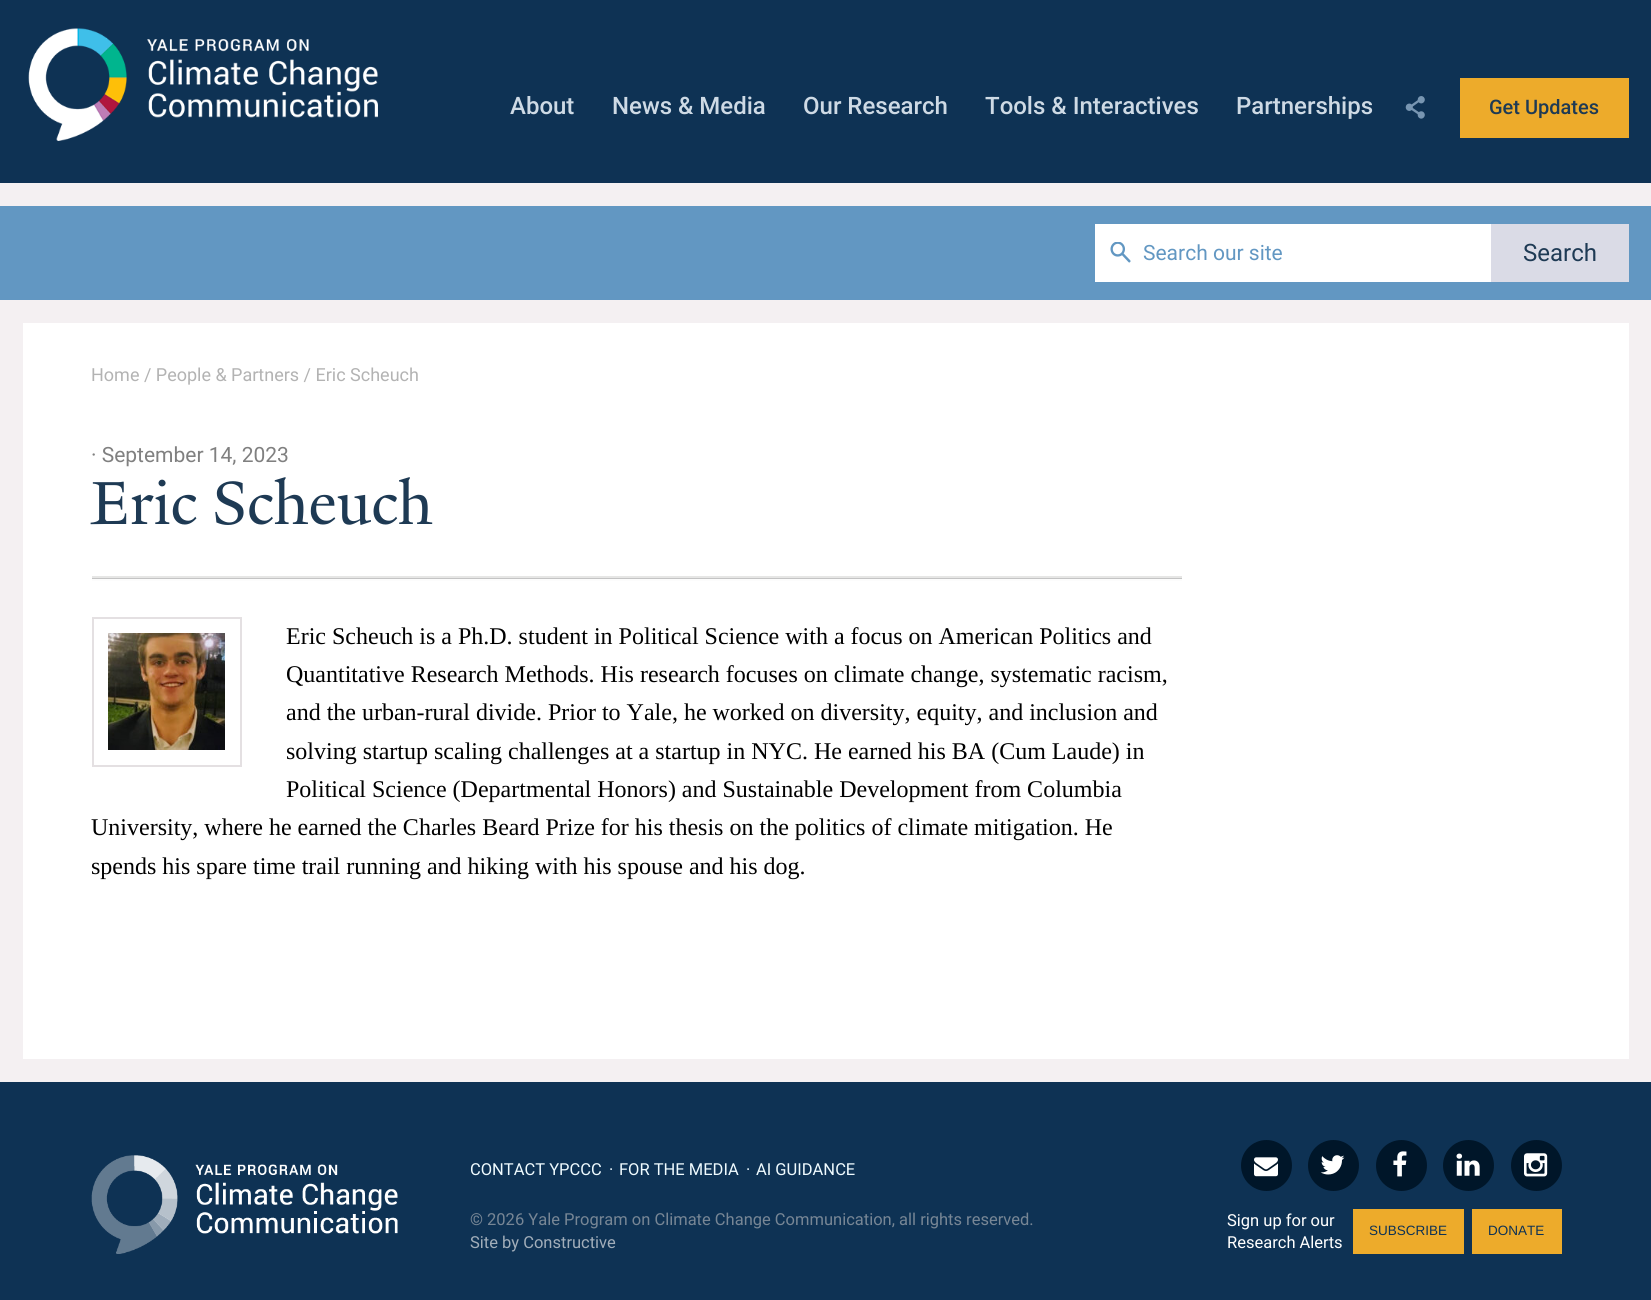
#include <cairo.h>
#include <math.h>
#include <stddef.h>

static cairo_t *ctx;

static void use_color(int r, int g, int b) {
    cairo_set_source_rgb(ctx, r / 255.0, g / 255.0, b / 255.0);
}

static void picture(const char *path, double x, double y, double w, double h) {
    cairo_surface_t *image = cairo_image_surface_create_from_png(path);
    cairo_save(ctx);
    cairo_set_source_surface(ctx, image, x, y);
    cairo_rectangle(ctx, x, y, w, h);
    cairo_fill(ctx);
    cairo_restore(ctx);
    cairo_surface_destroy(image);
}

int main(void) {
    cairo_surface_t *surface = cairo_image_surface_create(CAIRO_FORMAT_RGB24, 1651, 1300);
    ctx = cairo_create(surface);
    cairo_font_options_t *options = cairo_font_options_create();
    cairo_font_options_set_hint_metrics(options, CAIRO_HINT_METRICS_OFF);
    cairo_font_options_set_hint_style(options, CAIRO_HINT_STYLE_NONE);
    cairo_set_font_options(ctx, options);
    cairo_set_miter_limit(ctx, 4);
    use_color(244, 240, 242);
    cairo_paint(ctx);
    use_color(14, 50, 84);
    cairo_rectangle(ctx, 0, 0, 1651, 183);
    cairo_fill(ctx);
    picture("img1.png", 28, 28, 350, 113);
    cairo_select_font_face(ctx, "Roboto Medium", CAIRO_FONT_SLANT_NORMAL, CAIRO_FONT_WEIGHT_NORMAL);
    cairo_set_font_size(ctx, 24);
    use_color(206, 218, 229);
    cairo_move_to(ctx, 510, 114);
    cairo_show_text(ctx, "About");
    cairo_move_to(ctx, 612, 114);
    cairo_show_text(ctx, "News & Media");
    cairo_move_to(ctx, 803, 114);
    cairo_show_text(ctx, "Our Research");
    cairo_move_to(ctx, 985, 114);
    cairo_show_text(ctx, "Tools & Interactives");
    cairo_move_to(ctx, 1236, 114);
    cairo_show_text(ctx, "Partnerships");
    picture("img2.png", 1405, 96, 20, 23);
    use_color(237, 171, 43);
    cairo_rectangle(ctx, 1460, 78, 169, 60);
    cairo_fill(ctx);
    cairo_set_font_size(ctx, 20);
    use_color(30, 58, 84);
    cairo_move_to(ctx, 1489, 114);
    cairo_show_text(ctx, "Get Updates");
    use_color(98, 151, 194);
    cairo_rectangle(ctx, 0, 206, 1651, 94);
    cairo_fill(ctx);
    use_color(255, 255, 255);
    cairo_rectangle(ctx, 1095, 224, 396, 58);
    cairo_fill(ctx);
    picture("img3.png", 1110, 242, 21, 21);
    cairo_select_font_face(ctx, "Roboto", CAIRO_FONT_SLANT_NORMAL, CAIRO_FONT_WEIGHT_NORMAL);
    cairo_set_font_size(ctx, 21);
    use_color(98, 151, 194);
    cairo_move_to(ctx, 1143, 260);
    cairo_show_text(ctx, "Search our site");
    use_color(218, 219, 230);
    cairo_rectangle(ctx, 1491, 224, 138, 58);
    cairo_fill(ctx);
    cairo_set_font_size(ctx, 24);
    use_color(30, 58, 84);
    cairo_move_to(ctx, 1523, 261);
    cairo_show_text(ctx, "Search");
    use_color(255, 255, 255);
    cairo_rectangle(ctx, 23, 323, 1606, 736);
    cairo_fill(ctx);
    cairo_set_font_size(ctx, 18);
    use_color(179, 179, 179);
    cairo_move_to(ctx, 91, 381);
    cairo_show_text(ctx, "Home / People & Partners / Eric Scheuch");
    cairo_set_font_size(ctx, 21);
    use_color(128, 128, 128);
    cairo_move_to(ctx, 91, 462);
    cairo_show_text(ctx, "· September 14, 2023");
    cairo_select_font_face(ctx, "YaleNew", CAIRO_FONT_SLANT_NORMAL, CAIRO_FONT_WEIGHT_NORMAL);
    cairo_set_font_size(ctx, 66);
    use_color(30, 58, 84);
    cairo_move_to(ctx, 91, 524);
    cairo_show_text(ctx, "Eric Scheuch");
    use_color(196, 196, 196);
    cairo_rectangle(ctx, 92, 578, 1090, 1);
    cairo_fill(ctx);
    use_color(230, 230, 229);
    cairo_rectangle(ctx, 92, 576, 1090, 2);
    cairo_fill(ctx);
    use_color(252, 252, 252);
    cairo_rectangle(ctx, 92, 579, 1090, 2);
    cairo_fill(ctx);
    cairo_rectangle(ctx, 93, 618, 148, 148);
    use_color(228, 224, 226);
    cairo_stroke(ctx);
    picture("img4.png", 108, 633, 117, 117);
    cairo_select_font_face(ctx, "Liberation Serif", CAIRO_FONT_SLANT_NORMAL, CAIRO_FONT_WEIGHT_NORMAL);
    cairo_set_font_size(ctx, 24);
    use_color(0, 0, 0);
    cairo_move_to(ctx, 286, 644);
    cairo_show_text(ctx, "Eric Scheuch is a Ph.D. student in Political Science with a focus on American Politics and");
    cairo_move_to(ctx, 286, 682);
    cairo_show_text(ctx, "Quantitative Research Methods. His research focuses on climate change, systematic racism,");
    cairo_move_to(ctx, 286, 720);
    cairo_show_text(ctx, "and the urban-rural divide. Prior to Yale, he worked on diversity, equity, and inclusion and");
    cairo_move_to(ctx, 286, 759);
    cairo_show_text(ctx, "solving startup scaling challenges at a startup in NYC. He earned his BA (Cum Laude) in");
    cairo_move_to(ctx, 286, 797);
    cairo_show_text(ctx, "Political Science (Departmental Honors) and Sustainable Development from Columbia");
    cairo_move_to(ctx, 91, 835);
    cairo_show_text(ctx, "University, where he earned the Charles Beard Prize for his thesis on the politics of climate mitigation. He");
    cairo_move_to(ctx, 91, 874);
    cairo_show_text(ctx, "spends his spare time trail running and hiking with his spouse and his dog.");
    use_color(14, 50, 84);
    cairo_rectangle(ctx, 0, 1082, 1651, 218);
    cairo_fill(ctx);
    picture("img5.png", 91, 1155, 307, 99);
    cairo_select_font_face(ctx, "Roboto", CAIRO_FONT_SLANT_NORMAL, CAIRO_FONT_WEIGHT_NORMAL);
    cairo_set_font_size(ctx, 16.5);
    use_color(239, 251, 255);
    cairo_move_to(ctx, 470, 1175);
    cairo_show_text(ctx, "CONTACT YPCCC");
    cairo_move_to(ctx, 609, 1175);
    cairo_show_text(ctx, "·");
    cairo_move_to(ctx, 619, 1175);
    cairo_show_text(ctx, "FOR THE MEDIA");
    cairo_move_to(ctx, 746, 1175);
    cairo_show_text(ctx, "·");
    cairo_move_to(ctx, 756, 1175);
    cairo_show_text(ctx, "AI GUIDANCE");
    use_color(119, 134, 149);
    cairo_move_to(ctx, 470, 1225);
    cairo_show_text(ctx, "© 2026 Yale Program on Climate Change Communication, all rights reserved.");
    use_color(162, 174, 186);
    cairo_move_to(ctx, 470, 1248);
    cairo_show_text(ctx, "Site by Constructive");
    use_color(0, 22, 41);
    cairo_new_path(ctx);
    cairo_arc(ctx, 1266.5, 1165.5, 25.5, 0, 2 * M_PI);
    cairo_fill(ctx);
    picture("img6.png", 1254, 1157, 24, 20);
    cairo_arc(ctx, 1333.5, 1165.5, 25.5, 0, 2 * M_PI);
    cairo_fill(ctx);
    picture("img7.png", 1320, 1155, 25, 20);
    cairo_arc(ctx, 1401.5, 1165.5, 25.5, 0, 2 * M_PI);
    cairo_fill(ctx);
    picture("img8.png", 1393, 1151, 14, 26);
    cairo_arc(ctx, 1468.5, 1165.5, 25.5, 0, 2 * M_PI);
    cairo_fill(ctx);
    picture("img9.png", 1456, 1153, 24, 23);
    cairo_arc(ctx, 1536.5, 1165.5, 25.5, 0, 2 * M_PI);
    cairo_fill(ctx);
    picture("img10.png", 1524, 1153, 24, 24);
    use_color(255, 255, 255);
    cairo_move_to(ctx, 1227, 1226);
    cairo_show_text(ctx, "Sign up for our");
    cairo_move_to(ctx, 1227, 1248);
    cairo_show_text(ctx, "Research Alerts");
    use_color(237, 171, 43);
    cairo_rectangle(ctx, 1353, 1209, 111, 45);
    cairo_fill(ctx);
    cairo_select_font_face(ctx, "Liberation Sans", CAIRO_FONT_SLANT_NORMAL, CAIRO_FONT_WEIGHT_NORMAL);
    cairo_set_font_size(ctx, 13.5);
    use_color(14, 50, 84);
    cairo_move_to(ctx, 1369, 1235);
    cairo_show_text(ctx, "SUBSCRIBE");
    use_color(237, 171, 43);
    cairo_rectangle(ctx, 1472, 1209, 90, 45);
    cairo_fill(ctx);
    use_color(14, 50, 84);
    cairo_move_to(ctx, 1488, 1235);
    cairo_show_text(ctx, "DONATE");
    cairo_surface_write_to_png(surface, "result.png");
    cairo_font_options_destroy(options);
    cairo_destroy(ctx);
    cairo_surface_destroy(surface);
    return 0;
}
